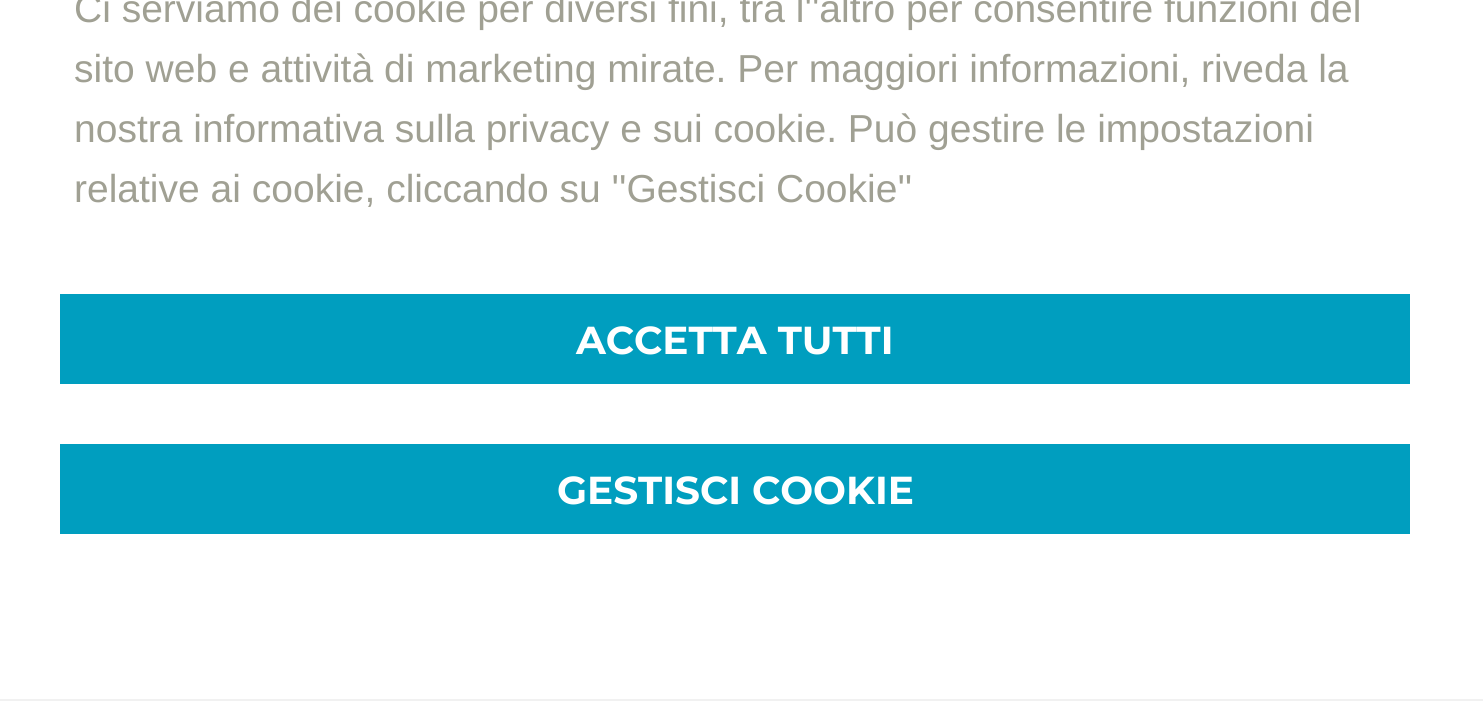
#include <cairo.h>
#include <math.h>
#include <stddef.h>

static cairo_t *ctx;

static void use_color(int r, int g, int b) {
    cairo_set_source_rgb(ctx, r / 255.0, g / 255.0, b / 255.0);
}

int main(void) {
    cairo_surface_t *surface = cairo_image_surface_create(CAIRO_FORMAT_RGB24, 1483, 701);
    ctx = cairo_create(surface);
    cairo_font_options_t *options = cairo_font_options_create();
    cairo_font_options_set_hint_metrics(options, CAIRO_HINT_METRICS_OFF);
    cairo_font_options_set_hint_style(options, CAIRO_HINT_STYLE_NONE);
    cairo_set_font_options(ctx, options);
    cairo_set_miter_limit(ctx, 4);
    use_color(255, 255, 255);
    cairo_paint(ctx);
    use_color(241, 241, 241);
    cairo_rectangle(ctx, 0, 699, 1483, 2);
    cairo_fill(ctx);
    cairo_select_font_face(ctx, "Liberation Sans", CAIRO_FONT_SLANT_NORMAL, CAIRO_FONT_WEIGHT_NORMAL);
    cairo_set_font_size(ctx, 39);
    use_color(160, 160, 147);
    cairo_move_to(ctx, 74, 22);
    cairo_show_text(ctx, "Ci serviamo dei cookie per diversi fini, tra l''altro per consentire funzioni del");
    cairo_move_to(ctx, 74, 82);
    cairo_show_text(ctx, "sito web e attività di marketing mirate. Per maggiori informazioni, riveda la");
    cairo_move_to(ctx, 74, 142);
    cairo_show_text(ctx, "nostra informativa sulla privacy e sui cookie. Può gestire le impostazioni");
    cairo_move_to(ctx, 74, 202);
    cairo_show_text(ctx, "relative ai cookie, cliccando su ''Gestisci Cookie''");
    use_color(0, 158, 191);
    cairo_rectangle(ctx, 60, 294, 1350, 90);
    cairo_fill(ctx);
    cairo_select_font_face(ctx, "Montserrat", CAIRO_FONT_SLANT_NORMAL, CAIRO_FONT_WEIGHT_BOLD);
    use_color(255, 255, 255);
    cairo_move_to(ctx, 576, 354);
    cairo_show_text(ctx, "ACCETTA TUTTI");
    use_color(0, 158, 191);
    cairo_rectangle(ctx, 60, 444, 1350, 90);
    cairo_fill(ctx);
    use_color(255, 255, 255);
    cairo_move_to(ctx, 557, 504);
    cairo_show_text(ctx, "GESTISCI COOKIE");
    cairo_surface_write_to_png(surface, "result.png");
    cairo_font_options_destroy(options);
    cairo_destroy(ctx);
    cairo_surface_destroy(surface);
    return 0;
}
